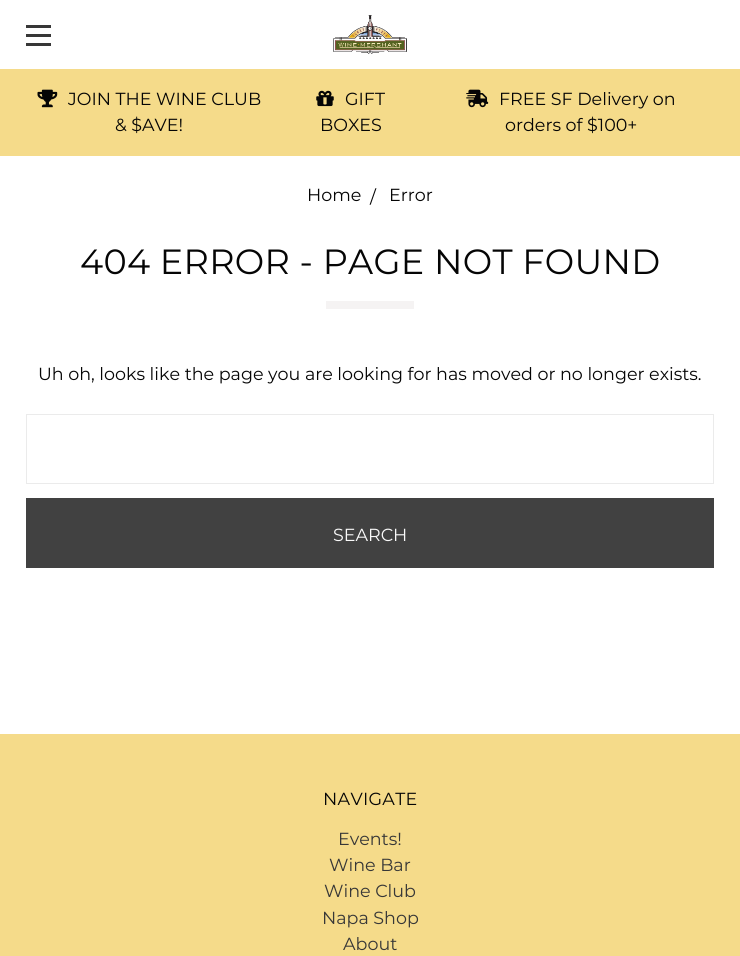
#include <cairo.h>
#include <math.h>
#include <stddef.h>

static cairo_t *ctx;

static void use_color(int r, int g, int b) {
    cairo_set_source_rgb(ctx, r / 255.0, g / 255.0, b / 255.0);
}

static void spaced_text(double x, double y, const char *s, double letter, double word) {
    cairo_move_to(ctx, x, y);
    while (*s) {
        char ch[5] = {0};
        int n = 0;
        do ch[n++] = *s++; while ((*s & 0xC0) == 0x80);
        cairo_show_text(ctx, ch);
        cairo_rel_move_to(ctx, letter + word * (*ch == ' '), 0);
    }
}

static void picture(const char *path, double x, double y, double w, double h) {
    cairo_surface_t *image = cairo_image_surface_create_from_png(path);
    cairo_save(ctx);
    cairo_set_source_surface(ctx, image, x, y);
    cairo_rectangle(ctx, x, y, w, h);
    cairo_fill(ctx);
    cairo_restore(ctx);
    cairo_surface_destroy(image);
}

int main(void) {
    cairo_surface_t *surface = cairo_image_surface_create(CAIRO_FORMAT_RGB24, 740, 956);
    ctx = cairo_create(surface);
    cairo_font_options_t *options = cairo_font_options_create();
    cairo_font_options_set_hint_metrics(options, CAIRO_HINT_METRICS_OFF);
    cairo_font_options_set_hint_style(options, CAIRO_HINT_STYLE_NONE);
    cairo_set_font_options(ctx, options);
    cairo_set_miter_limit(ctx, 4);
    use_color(255, 255, 255);
    cairo_paint(ctx);
    use_color(55, 55, 55);
    cairo_rectangle(ctx, 26, 34, 25, 3);
    cairo_fill(ctx);
    cairo_rectangle(ctx, 26, 25, 25, 3);
    cairo_fill(ctx);
    cairo_rectangle(ctx, 26, 43, 25, 3);
    cairo_fill(ctx);
    picture("img1.png", 333, 15, 74, 39);
    use_color(245, 219, 138);
    cairo_rectangle(ctx, 0, 69, 740, 87);
    cairo_fill(ctx);
    picture("img2.png", 37, 89, 21, 19);
    cairo_select_font_face(ctx, "Montserrat Thin", CAIRO_FONT_SLANT_NORMAL, CAIRO_FONT_WEIGHT_NORMAL);
    cairo_set_font_size(ctx, 17.5);
    use_color(5, 5, 5);
    cairo_move_to(ctx, 68, 105);
    cairo_show_text(ctx, "JOIN THE WINE CLUB");
    cairo_move_to(ctx, 115, 131);
    cairo_show_text(ctx, "& $AVE!");
    picture("img3.png", 316, 90, 18, 17);
    cairo_move_to(ctx, 345, 105);
    cairo_show_text(ctx, "GIFT");
    cairo_move_to(ctx, 320, 131);
    cairo_show_text(ctx, "BOXES");
    picture("img4.png", 466, 89, 23, 19);
    cairo_move_to(ctx, 499, 105);
    cairo_show_text(ctx, "FREE SF Delivery on");
    cairo_move_to(ctx, 505, 131);
    cairo_show_text(ctx, "orders of $100+");
    cairo_move_to(ctx, 307, 201);
    cairo_show_text(ctx, "Home");
    cairo_move_to(ctx, 370, 203);
    cairo_show_text(ctx, "/");
    cairo_move_to(ctx, 389, 201);
    cairo_show_text(ctx, "Error");
    cairo_set_font_size(ctx, 35);
    spaced_text(80, 274, "404 ERROR - PAGE NOT FOUND", 0.3, 0);
    use_color(245, 243, 243);
    cairo_rectangle(ctx, 326, 301, 88, 8);
    cairo_fill(ctx);
    cairo_set_font_size(ctx, 17.5);
    use_color(5, 5, 5);
    cairo_move_to(ctx, 38, 380);
    cairo_show_text(ctx, "Uh oh, looks like the page you are looking for has moved or no longer exists.");
    cairo_rectangle(ctx, 26.5, 414.5, 687, 69);
    use_color(235, 235, 235);
    cairo_set_line_width(ctx, 1);
    cairo_stroke(ctx);
    use_color(65, 65, 65);
    cairo_rectangle(ctx, 26, 498, 688, 70);
    cairo_fill(ctx);
    use_color(250, 250, 250);
    cairo_move_to(ctx, 333, 541);
    cairo_show_text(ctx, "SEARCH");
    use_color(245, 219, 138);
    cairo_rectangle(ctx, 0, 734, 740, 222);
    cairo_fill(ctx);
    use_color(5, 5, 5);
    spaced_text(323, 805, "NAVIGATE", 0.3, 0);
    use_color(55, 55, 55);
    cairo_move_to(ctx, 338, 845);
    cairo_show_text(ctx, "Events!");
    cairo_move_to(ctx, 329, 871);
    cairo_show_text(ctx, "Wine Bar");
    cairo_move_to(ctx, 324, 897);
    cairo_show_text(ctx, "Wine Club");
    cairo_move_to(ctx, 322, 924);
    cairo_show_text(ctx, "Napa Shop");
    cairo_move_to(ctx, 343, 950);
    cairo_show_text(ctx, "About");
    cairo_surface_write_to_png(surface, "result.png");
    cairo_font_options_destroy(options);
    cairo_destroy(ctx);
    cairo_surface_destroy(surface);
    return 0;
}
